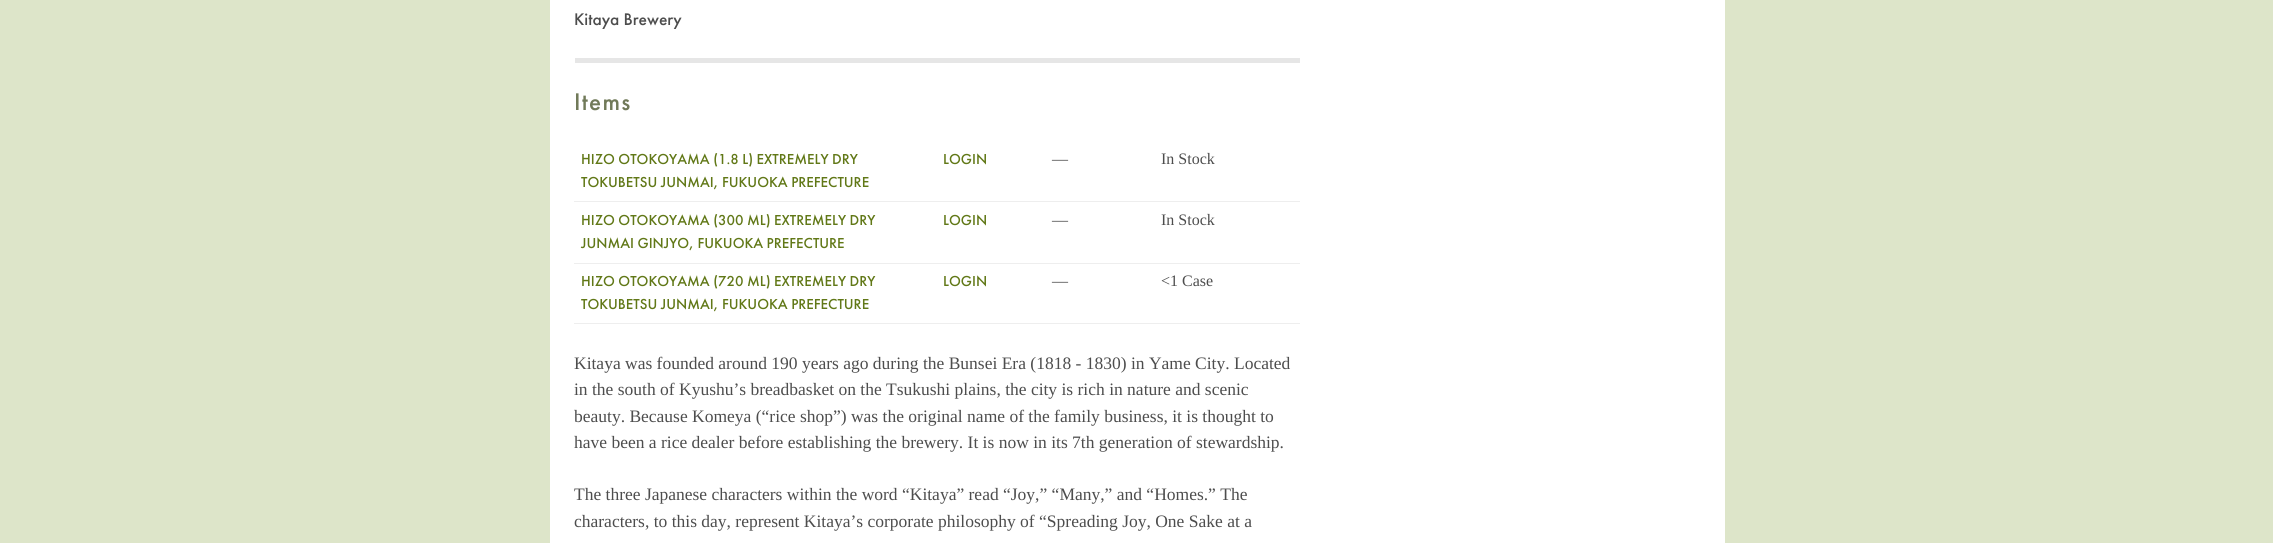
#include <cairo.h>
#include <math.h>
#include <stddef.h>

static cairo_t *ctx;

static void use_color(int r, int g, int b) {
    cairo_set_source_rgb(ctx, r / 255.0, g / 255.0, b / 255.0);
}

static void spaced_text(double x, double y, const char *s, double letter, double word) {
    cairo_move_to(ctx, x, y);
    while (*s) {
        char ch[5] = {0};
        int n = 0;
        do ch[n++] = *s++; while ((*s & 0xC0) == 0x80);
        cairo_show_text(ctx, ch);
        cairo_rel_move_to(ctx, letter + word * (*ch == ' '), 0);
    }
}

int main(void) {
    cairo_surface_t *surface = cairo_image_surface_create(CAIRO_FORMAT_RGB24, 2273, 543);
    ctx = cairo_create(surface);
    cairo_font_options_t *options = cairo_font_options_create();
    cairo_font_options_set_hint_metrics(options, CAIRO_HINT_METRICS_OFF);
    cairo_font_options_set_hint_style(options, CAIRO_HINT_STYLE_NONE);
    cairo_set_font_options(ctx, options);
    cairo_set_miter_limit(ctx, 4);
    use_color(221, 229, 201);
    cairo_paint(ctx);
    use_color(255, 255, 255);
    cairo_rectangle(ctx, 550, 0, 1175, 543);
    cairo_fill(ctx);
    use_color(230, 230, 230);
    cairo_rectangle(ctx, 575, 58, 725, 5);
    cairo_fill(ctx);
    cairo_select_font_face(ctx, "Futura PT Medium", CAIRO_FONT_SLANT_NORMAL, CAIRO_FONT_WEIGHT_NORMAL);
    cairo_set_font_size(ctx, 17.5);
    use_color(77, 77, 77);
    cairo_move_to(ctx, 574, 25);
    cairo_show_text(ctx, "Kitaya Brewery");
    cairo_set_font_size(ctx, 25);
    use_color(113, 122, 89);
    spaced_text(574, 110, "Items", 1.25, 0);
    use_color(238, 238, 238);
    cairo_rectangle(ctx, 574, 201, 726, 1);
    cairo_fill(ctx);
    cairo_set_font_size(ctx, 15);
    use_color(97, 120, 23);
    cairo_move_to(ctx, 581, 164);
    cairo_show_text(ctx, "HIZO OTOKOYAMA (1.8 L) EXTREMELY DRY");
    cairo_move_to(ctx, 581, 187);
    cairo_show_text(ctx, "TOKUBETSU JUNMAI, FUKUOKA PREFECTURE");
    cairo_move_to(ctx, 943, 164);
    cairo_show_text(ctx, "LOGIN");
    cairo_select_font_face(ctx, "Liberation Serif", CAIRO_FONT_SLANT_NORMAL, CAIRO_FONT_WEIGHT_NORMAL);
    cairo_set_font_size(ctx, 16);
    use_color(77, 77, 77);
    cairo_move_to(ctx, 1052, 164);
    cairo_show_text(ctx, "—");
    cairo_move_to(ctx, 1161, 164);
    cairo_show_text(ctx, "In Stock");
    use_color(238, 238, 238);
    cairo_rectangle(ctx, 574, 263, 726, 1);
    cairo_fill(ctx);
    cairo_select_font_face(ctx, "Futura PT Medium", CAIRO_FONT_SLANT_NORMAL, CAIRO_FONT_WEIGHT_NORMAL);
    cairo_set_font_size(ctx, 15);
    use_color(97, 120, 23);
    cairo_move_to(ctx, 581, 225);
    cairo_show_text(ctx, "HIZO OTOKOYAMA (300 ML) EXTREMELY DRY");
    cairo_move_to(ctx, 581, 248);
    cairo_show_text(ctx, "JUNMAI GINJYO, FUKUOKA PREFECTURE");
    cairo_move_to(ctx, 943, 225);
    cairo_show_text(ctx, "LOGIN");
    cairo_select_font_face(ctx, "Liberation Serif", CAIRO_FONT_SLANT_NORMAL, CAIRO_FONT_WEIGHT_NORMAL);
    cairo_set_font_size(ctx, 16);
    use_color(77, 77, 77);
    cairo_move_to(ctx, 1052, 225);
    cairo_show_text(ctx, "—");
    cairo_move_to(ctx, 1161, 225);
    cairo_show_text(ctx, "In Stock");
    use_color(238, 238, 238);
    cairo_rectangle(ctx, 574, 323, 726, 1);
    cairo_fill(ctx);
    cairo_select_font_face(ctx, "Futura PT Medium", CAIRO_FONT_SLANT_NORMAL, CAIRO_FONT_WEIGHT_NORMAL);
    cairo_set_font_size(ctx, 15);
    use_color(97, 120, 23);
    cairo_move_to(ctx, 581, 286);
    cairo_show_text(ctx, "HIZO OTOKOYAMA (720 ML) EXTREMELY DRY");
    cairo_move_to(ctx, 581, 309);
    cairo_show_text(ctx, "TOKUBETSU JUNMAI, FUKUOKA PREFECTURE");
    cairo_move_to(ctx, 943, 286);
    cairo_show_text(ctx, "LOGIN");
    cairo_select_font_face(ctx, "Liberation Serif", CAIRO_FONT_SLANT_NORMAL, CAIRO_FONT_WEIGHT_NORMAL);
    cairo_set_font_size(ctx, 16);
    use_color(77, 77, 77);
    cairo_move_to(ctx, 1052, 286);
    cairo_show_text(ctx, "—");
    cairo_move_to(ctx, 1161, 286);
    cairo_show_text(ctx, "<1 Case");
    cairo_set_font_size(ctx, 17.5);
    cairo_move_to(ctx, 574, 369);
    cairo_show_text(ctx, "Kitaya was founded around 190 years ago during the Bunsei Era (1818 - 1830) in Yame City. Located");
    cairo_move_to(ctx, 574, 395);
    cairo_show_text(ctx, "in the south of Kyushu’s breadbasket on the Tsukushi plains, the city is rich in nature and scenic");
    cairo_move_to(ctx, 574, 422);
    cairo_show_text(ctx, "beauty. Because Komeya (“rice shop”) was the original name of the family business, it is thought to");
    cairo_move_to(ctx, 574, 448);
    cairo_show_text(ctx, "have been a rice dealer before establishing the brewery. It is now in its 7th generation of stewardship.");
    cairo_move_to(ctx, 574, 500);
    cairo_show_text(ctx, "The three Japanese characters within the word “Kitaya” read “Joy,” “Many,” and “Homes.” The");
    cairo_move_to(ctx, 574, 527);
    cairo_show_text(ctx, "characters, to this day, represent Kitaya’s corporate philosophy of “Spreading Joy, One Sake at a");
    cairo_surface_write_to_png(surface, "result.png");
    cairo_font_options_destroy(options);
    cairo_destroy(ctx);
    cairo_surface_destroy(surface);
    return 0;
}
